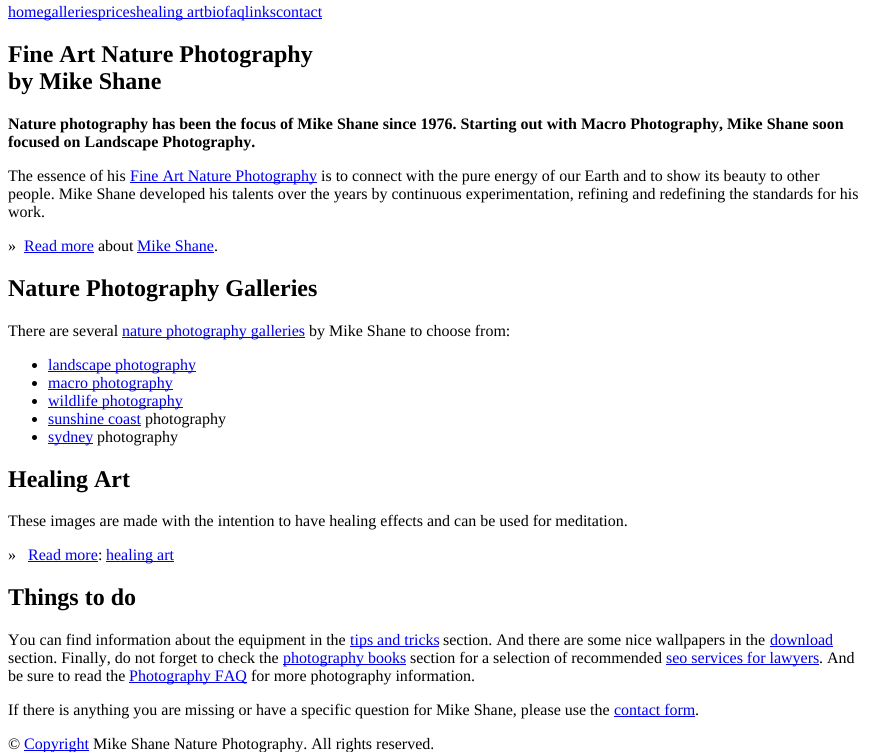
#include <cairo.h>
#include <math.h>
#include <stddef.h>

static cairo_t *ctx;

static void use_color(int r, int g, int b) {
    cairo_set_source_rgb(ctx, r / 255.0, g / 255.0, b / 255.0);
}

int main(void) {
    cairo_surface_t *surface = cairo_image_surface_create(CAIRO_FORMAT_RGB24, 874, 752);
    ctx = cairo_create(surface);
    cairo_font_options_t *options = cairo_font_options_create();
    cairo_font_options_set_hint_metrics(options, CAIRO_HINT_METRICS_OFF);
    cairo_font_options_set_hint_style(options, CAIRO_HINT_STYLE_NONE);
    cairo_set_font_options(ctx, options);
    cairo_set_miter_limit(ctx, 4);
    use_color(255, 255, 255);
    cairo_paint(ctx);
    use_color(0, 0, 238);
    cairo_rectangle(ctx, 8, 18, 314, 1);
    cairo_fill(ctx);
    cairo_select_font_face(ctx, "Liberation Serif", CAIRO_FONT_SLANT_NORMAL, CAIRO_FONT_WEIGHT_NORMAL);
    cairo_set_font_size(ctx, 16);
    cairo_move_to(ctx, 8, 17);
    cairo_show_text(ctx, "homegalleriespriceshealing artbiofaqlinkscontact");
    cairo_select_font_face(ctx, "Liberation Serif", CAIRO_FONT_SLANT_NORMAL, CAIRO_FONT_WEIGHT_BOLD);
    cairo_set_font_size(ctx, 24);
    use_color(0, 0, 0);
    cairo_move_to(ctx, 8, 62);
    cairo_show_text(ctx, "Fine Art Nature Photography");
    cairo_move_to(ctx, 8, 89);
    cairo_show_text(ctx, "by Mike Shane");
    cairo_set_font_size(ctx, 16);
    cairo_move_to(ctx, 8, 129);
    cairo_show_text(ctx, "Nature photography has been the focus of Mike Shane since 1976. Starting out with Macro Photography, Mike Shane soon");
    cairo_move_to(ctx, 8, 147);
    cairo_show_text(ctx, "focused on Landscape Photography.");
    cairo_select_font_face(ctx, "Liberation Serif", CAIRO_FONT_SLANT_NORMAL, CAIRO_FONT_WEIGHT_NORMAL);
    cairo_move_to(ctx, 8, 181);
    cairo_show_text(ctx, "The essence of his");
    use_color(0, 0, 238);
    cairo_rectangle(ctx, 130, 182, 187, 1);
    cairo_fill(ctx);
    cairo_move_to(ctx, 130, 181);
    cairo_show_text(ctx, "Fine Art Nature Photography");
    use_color(0, 0, 0);
    cairo_move_to(ctx, 321, 181);
    cairo_show_text(ctx, "is to connect with the pure energy of our Earth and to show its beauty to other");
    cairo_move_to(ctx, 8, 199);
    cairo_show_text(ctx, "people. Mike Shane developed his talents over the years by continuous experimentation, refining and redefining the standards for his");
    cairo_move_to(ctx, 8, 217);
    cairo_show_text(ctx, "work.");
    cairo_move_to(ctx, 8, 251);
    cairo_show_text(ctx, "»");
    use_color(0, 0, 238);
    cairo_move_to(ctx, 24, 251);
    cairo_show_text(ctx, "Read more");
    cairo_rectangle(ctx, 24, 252, 70, 1);
    cairo_fill(ctx);
    use_color(0, 0, 0);
    cairo_move_to(ctx, 98, 251);
    cairo_show_text(ctx, "about");
    use_color(0, 0, 238);
    cairo_move_to(ctx, 137, 251);
    cairo_show_text(ctx, "Mike Shane");
    cairo_rectangle(ctx, 137, 252, 77, 1);
    cairo_fill(ctx);
    use_color(0, 0, 0);
    cairo_move_to(ctx, 214, 251);
    cairo_show_text(ctx, ".");
    cairo_select_font_face(ctx, "Liberation Serif", CAIRO_FONT_SLANT_NORMAL, CAIRO_FONT_WEIGHT_BOLD);
    cairo_set_font_size(ctx, 24);
    cairo_move_to(ctx, 8, 296);
    cairo_show_text(ctx, "Nature Photography Galleries");
    cairo_select_font_face(ctx, "Liberation Serif", CAIRO_FONT_SLANT_NORMAL, CAIRO_FONT_WEIGHT_NORMAL);
    cairo_set_font_size(ctx, 16);
    cairo_move_to(ctx, 8, 336);
    cairo_show_text(ctx, "There are several");
    use_color(0, 0, 238);
    cairo_rectangle(ctx, 122, 337, 183, 1);
    cairo_fill(ctx);
    cairo_move_to(ctx, 122, 336);
    cairo_show_text(ctx, "nature photography galleries");
    use_color(0, 0, 0);
    cairo_move_to(ctx, 309, 336);
    cairo_show_text(ctx, "by Mike Shane to choose from:");
    cairo_new_path(ctx);
    cairo_arc(ctx, 34.5, 365.5, 2.5, 0, 2 * M_PI);
    cairo_fill(ctx);
    use_color(0, 0, 238);
    cairo_rectangle(ctx, 48, 371, 148, 1);
    cairo_fill(ctx);
    cairo_move_to(ctx, 48, 370);
    cairo_show_text(ctx, "landscape photography");
    use_color(0, 0, 0);
    cairo_new_path(ctx);
    cairo_arc(ctx, 34.5, 383.5, 2.5, 0, 2 * M_PI);
    cairo_fill(ctx);
    use_color(0, 0, 238);
    cairo_rectangle(ctx, 48, 389, 125, 1);
    cairo_fill(ctx);
    cairo_move_to(ctx, 48, 388);
    cairo_show_text(ctx, "macro photography");
    use_color(0, 0, 0);
    cairo_new_path(ctx);
    cairo_arc(ctx, 34.5, 401.5, 2.5, 0, 2 * M_PI);
    cairo_fill(ctx);
    use_color(0, 0, 238);
    cairo_rectangle(ctx, 48, 407, 135, 1);
    cairo_fill(ctx);
    cairo_move_to(ctx, 48, 406);
    cairo_show_text(ctx, "wildlife photography");
    use_color(0, 0, 0);
    cairo_new_path(ctx);
    cairo_arc(ctx, 34.5, 419.5, 2.5, 0, 2 * M_PI);
    cairo_fill(ctx);
    use_color(0, 0, 238);
    cairo_move_to(ctx, 48, 424);
    cairo_show_text(ctx, "sunshine coast");
    cairo_rectangle(ctx, 48, 425, 93, 1);
    cairo_fill(ctx);
    use_color(0, 0, 0);
    cairo_move_to(ctx, 145, 424);
    cairo_show_text(ctx, "photography");
    cairo_new_path(ctx);
    cairo_arc(ctx, 34.5, 437.5, 2.5, 0, 2 * M_PI);
    cairo_fill(ctx);
    use_color(0, 0, 238);
    cairo_rectangle(ctx, 48, 443, 45, 1);
    cairo_fill(ctx);
    cairo_move_to(ctx, 48, 442);
    cairo_show_text(ctx, "sydney");
    use_color(0, 0, 0);
    cairo_move_to(ctx, 97, 442);
    cairo_show_text(ctx, "photography");
    cairo_select_font_face(ctx, "Liberation Serif", CAIRO_FONT_SLANT_NORMAL, CAIRO_FONT_WEIGHT_BOLD);
    cairo_set_font_size(ctx, 24);
    cairo_move_to(ctx, 8, 487);
    cairo_show_text(ctx, "Healing Art");
    cairo_select_font_face(ctx, "Liberation Serif", CAIRO_FONT_SLANT_NORMAL, CAIRO_FONT_WEIGHT_NORMAL);
    cairo_set_font_size(ctx, 16);
    cairo_move_to(ctx, 8, 526);
    cairo_show_text(ctx, "These images are made with the intention to have healing effects and can be used for meditation.");
    cairo_move_to(ctx, 8, 560);
    cairo_show_text(ctx, "»");
    use_color(0, 0, 238);
    cairo_move_to(ctx, 28, 560);
    cairo_show_text(ctx, "Read more");
    cairo_rectangle(ctx, 28, 561, 70, 1);
    cairo_fill(ctx);
    use_color(0, 0, 0);
    cairo_move_to(ctx, 98, 560);
    cairo_show_text(ctx, ":");
    use_color(0, 0, 238);
    cairo_rectangle(ctx, 106, 561, 68, 1);
    cairo_fill(ctx);
    cairo_move_to(ctx, 106, 560);
    cairo_show_text(ctx, "healing art");
    cairo_select_font_face(ctx, "Liberation Serif", CAIRO_FONT_SLANT_NORMAL, CAIRO_FONT_WEIGHT_BOLD);
    cairo_set_font_size(ctx, 24);
    use_color(0, 0, 0);
    cairo_move_to(ctx, 8, 605);
    cairo_show_text(ctx, "Things to do");
    cairo_select_font_face(ctx, "Liberation Serif", CAIRO_FONT_SLANT_NORMAL, CAIRO_FONT_WEIGHT_NORMAL);
    cairo_set_font_size(ctx, 16);
    cairo_move_to(ctx, 8, 645);
    cairo_show_text(ctx, "You can find information about the equipment in the");
    use_color(0, 0, 238);
    cairo_rectangle(ctx, 350, 646, 89, 1);
    cairo_fill(ctx);
    cairo_move_to(ctx, 350, 645);
    cairo_show_text(ctx, "tips and tricks");
    use_color(0, 0, 0);
    cairo_move_to(ctx, 443, 645);
    cairo_show_text(ctx, "section. And there are some nice wallpapers in the");
    use_color(0, 0, 238);
    cairo_move_to(ctx, 770, 645);
    cairo_show_text(ctx, "download");
    cairo_rectangle(ctx, 770, 646, 63, 1);
    cairo_fill(ctx);
    use_color(0, 0, 0);
    cairo_move_to(ctx, 8, 663);
    cairo_show_text(ctx, "section. Finally, do not forget to check the");
    use_color(0, 0, 238);
    cairo_rectangle(ctx, 283, 664, 123, 1);
    cairo_fill(ctx);
    cairo_move_to(ctx, 283, 663);
    cairo_show_text(ctx, "photography books");
    use_color(0, 0, 0);
    cairo_move_to(ctx, 410, 663);
    cairo_show_text(ctx, "section for a selection of recommended");
    use_color(0, 0, 238);
    cairo_rectangle(ctx, 666, 664, 153, 1);
    cairo_fill(ctx);
    cairo_move_to(ctx, 666, 663);
    cairo_show_text(ctx, "seo services for lawyers");
    use_color(0, 0, 0);
    cairo_move_to(ctx, 819, 663);
    cairo_show_text(ctx, ". And");
    cairo_move_to(ctx, 8, 681);
    cairo_show_text(ctx, "be sure to read the");
    use_color(0, 0, 238);
    cairo_rectangle(ctx, 129, 682, 118, 1);
    cairo_fill(ctx);
    cairo_move_to(ctx, 129, 681);
    cairo_show_text(ctx, "Photography FAQ");
    use_color(0, 0, 0);
    cairo_move_to(ctx, 251, 681);
    cairo_show_text(ctx, "for more photography information.");
    cairo_move_to(ctx, 8, 715);
    cairo_show_text(ctx, "If there is anything you are missing or have a specific question for Mike Shane, please use the");
    use_color(0, 0, 238);
    cairo_move_to(ctx, 614, 715);
    cairo_show_text(ctx, "contact form");
    cairo_rectangle(ctx, 614, 716, 81, 1);
    cairo_fill(ctx);
    use_color(0, 0, 0);
    cairo_move_to(ctx, 695, 715);
    cairo_show_text(ctx, ".");
    cairo_move_to(ctx, 8, 749);
    cairo_show_text(ctx, "©");
    use_color(0, 0, 238);
    cairo_rectangle(ctx, 24, 750, 65, 1);
    cairo_fill(ctx);
    cairo_move_to(ctx, 24, 749);
    cairo_show_text(ctx, "Copyright");
    use_color(0, 0, 0);
    cairo_move_to(ctx, 93, 749);
    cairo_show_text(ctx, "Mike Shane Nature Photography. All rights reserved.");
    cairo_surface_write_to_png(surface, "result.png");
    cairo_font_options_destroy(options);
    cairo_destroy(ctx);
    cairo_surface_destroy(surface);
    return 0;
}
